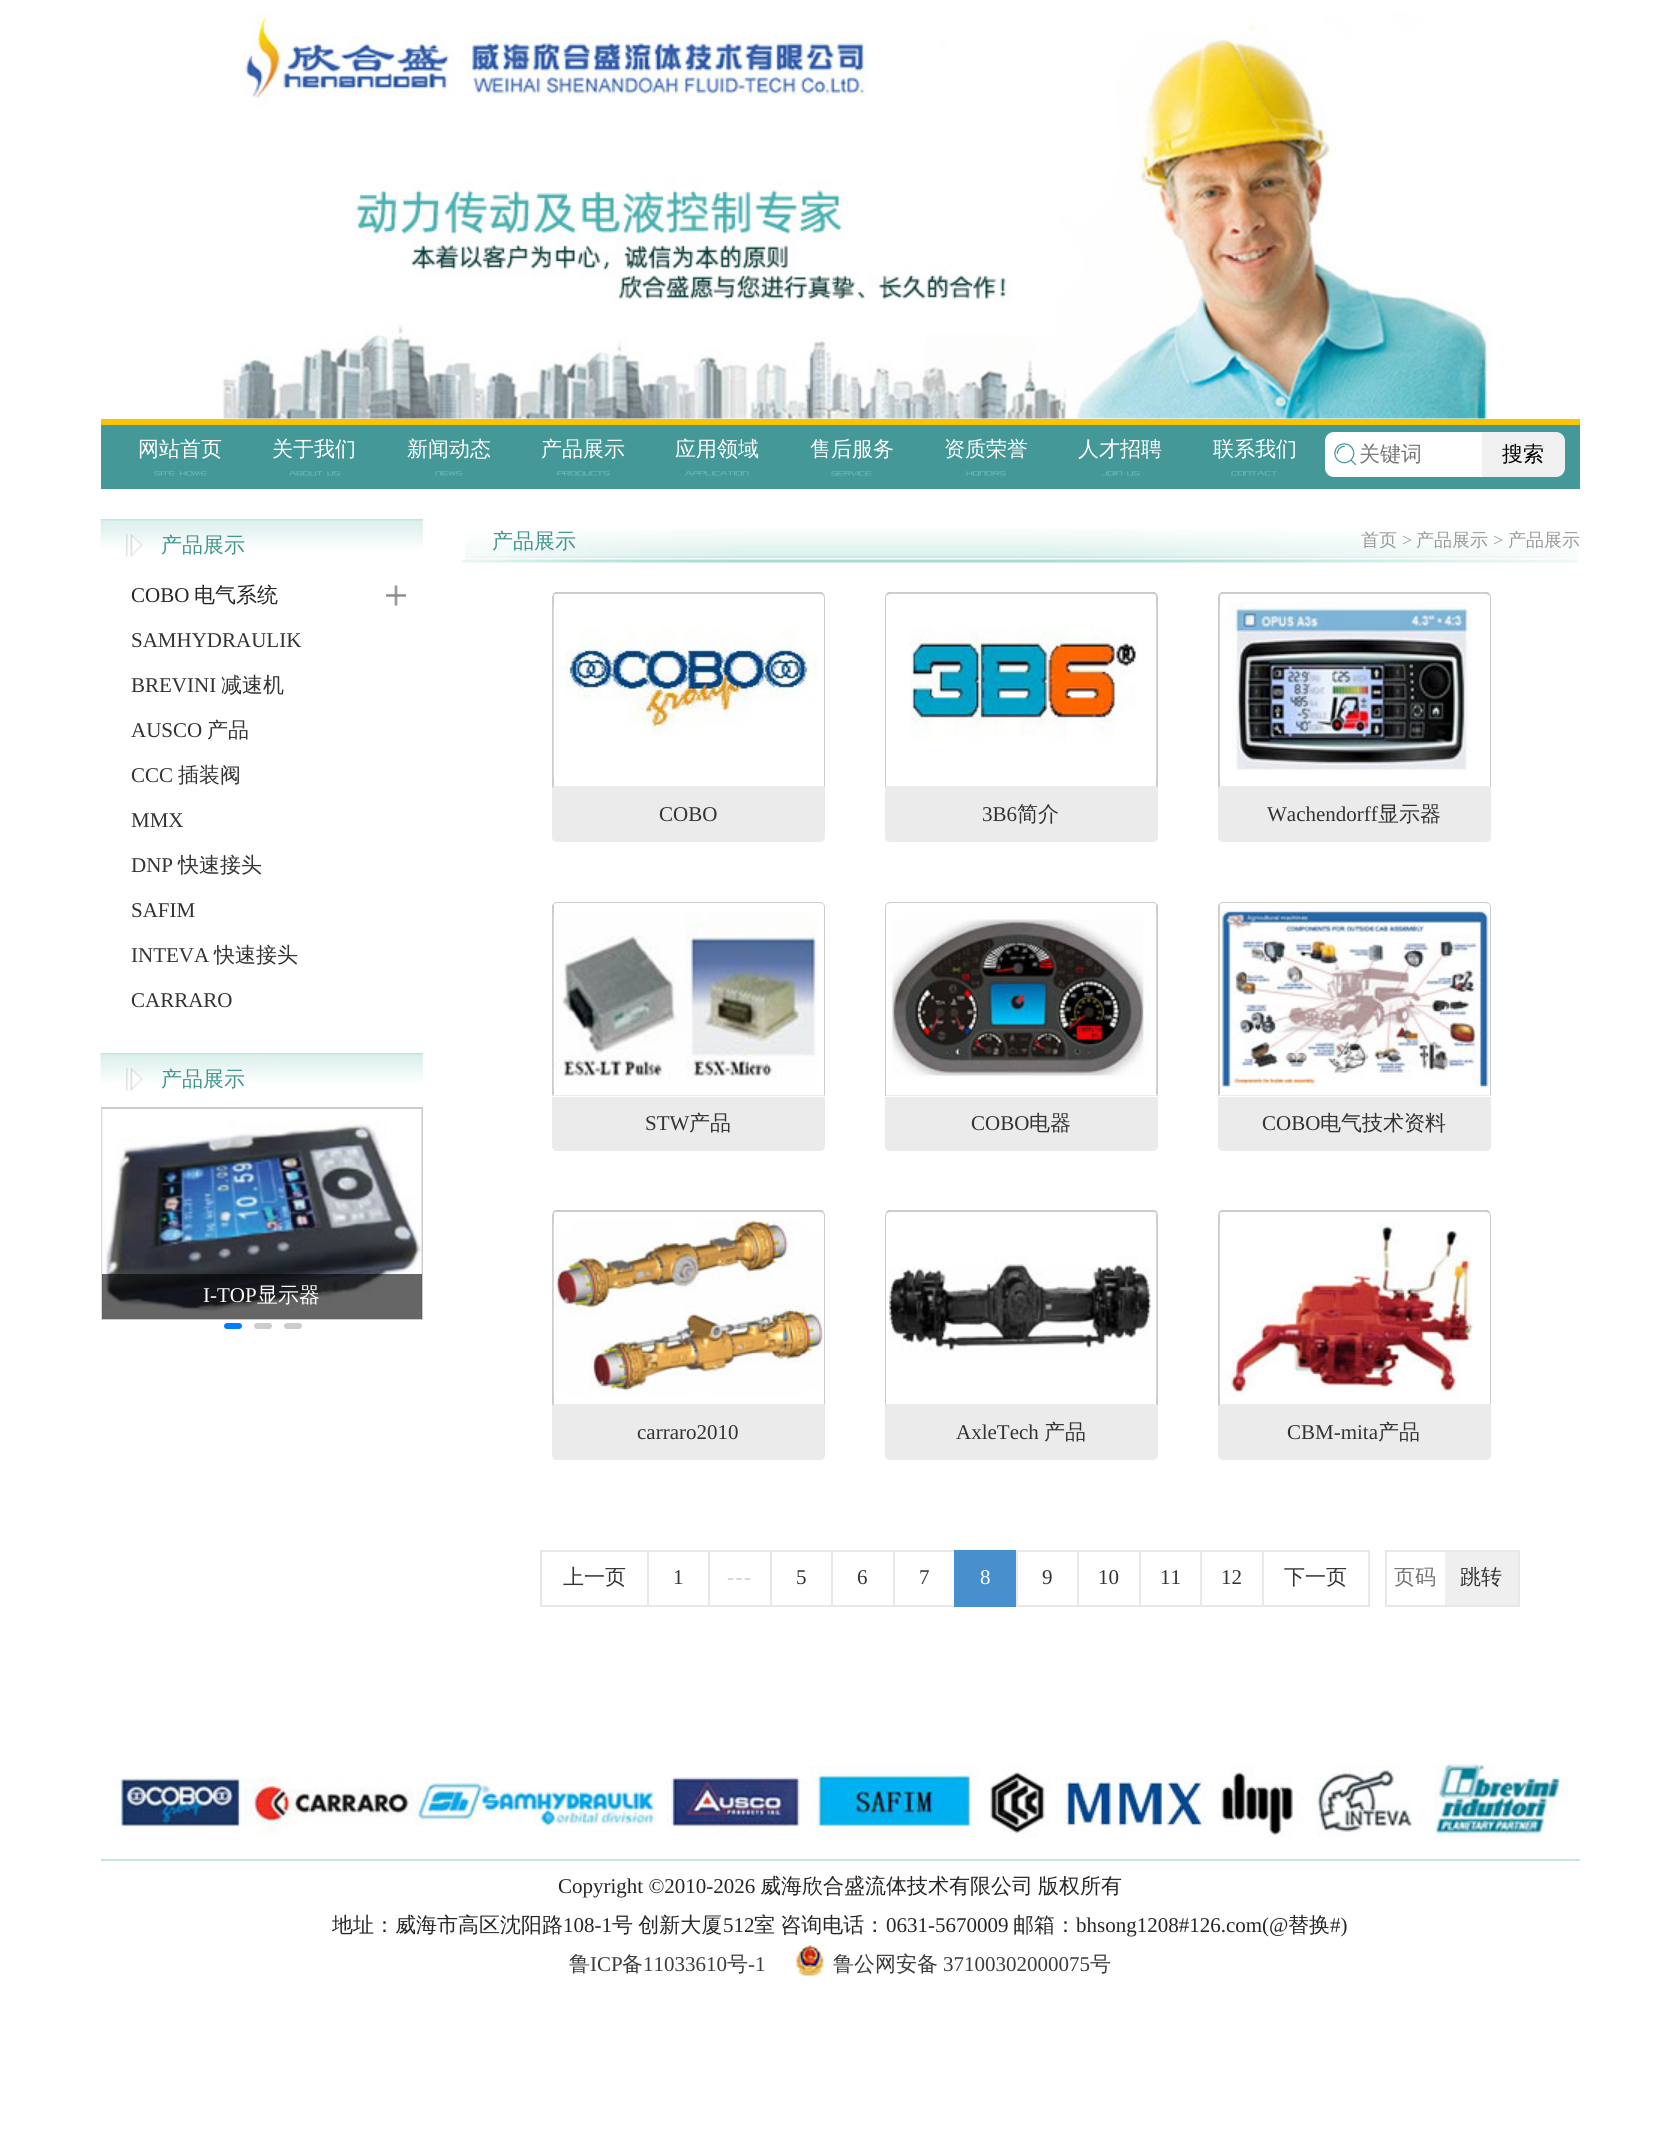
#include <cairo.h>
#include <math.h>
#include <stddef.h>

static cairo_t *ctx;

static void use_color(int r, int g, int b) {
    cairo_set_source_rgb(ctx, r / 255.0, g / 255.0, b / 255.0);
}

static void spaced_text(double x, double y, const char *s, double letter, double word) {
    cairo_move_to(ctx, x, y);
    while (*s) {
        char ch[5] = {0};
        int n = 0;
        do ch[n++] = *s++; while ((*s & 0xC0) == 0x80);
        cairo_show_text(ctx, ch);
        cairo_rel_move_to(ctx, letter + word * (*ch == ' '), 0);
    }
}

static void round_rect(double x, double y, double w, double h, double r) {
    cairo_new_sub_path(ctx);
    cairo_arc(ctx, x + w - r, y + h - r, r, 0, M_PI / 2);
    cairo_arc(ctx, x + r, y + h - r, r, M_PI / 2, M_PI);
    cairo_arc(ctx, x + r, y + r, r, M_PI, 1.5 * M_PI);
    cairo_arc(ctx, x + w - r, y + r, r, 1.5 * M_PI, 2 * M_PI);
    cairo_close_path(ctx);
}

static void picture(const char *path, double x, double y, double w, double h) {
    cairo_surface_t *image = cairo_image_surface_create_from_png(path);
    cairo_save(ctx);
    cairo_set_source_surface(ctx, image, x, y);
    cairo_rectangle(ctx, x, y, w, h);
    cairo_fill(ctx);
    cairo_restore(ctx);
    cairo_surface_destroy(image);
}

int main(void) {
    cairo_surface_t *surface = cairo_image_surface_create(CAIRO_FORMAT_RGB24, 1680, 2141);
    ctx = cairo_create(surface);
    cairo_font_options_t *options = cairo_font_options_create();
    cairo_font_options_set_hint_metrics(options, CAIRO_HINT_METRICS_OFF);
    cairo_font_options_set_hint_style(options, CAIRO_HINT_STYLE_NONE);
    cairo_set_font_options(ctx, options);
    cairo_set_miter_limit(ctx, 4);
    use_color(255, 255, 255);
    cairo_paint(ctx);
    picture("img1.png", 221, 12, 1271, 407);
    use_color(250, 196, 0);
    cairo_rectangle(ctx, 101, 419, 1479, 6);
    cairo_fill(ctx);
    use_color(68, 152, 152);
    cairo_rectangle(ctx, 101, 425, 1479, 64);
    cairo_fill(ctx);
    cairo_select_font_face(ctx, "WenQuanYi Zen Hei Medium", CAIRO_FONT_SLANT_NORMAL, CAIRO_FONT_WEIGHT_NORMAL);
    cairo_set_font_size(ctx, 21);
    use_color(255, 255, 255);
    cairo_move_to(ctx, 138, 456);
    cairo_show_text(ctx, "网站首页");
    cairo_select_font_face(ctx, "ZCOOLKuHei", CAIRO_FONT_SLANT_NORMAL, CAIRO_FONT_WEIGHT_NORMAL);
    cairo_set_font_size(ctx, 9);
    use_color(97, 183, 182);
    cairo_move_to(ctx, 154, 476);
    cairo_show_text(ctx, "SITE HOME");
    cairo_select_font_face(ctx, "WenQuanYi Zen Hei Medium", CAIRO_FONT_SLANT_NORMAL, CAIRO_FONT_WEIGHT_NORMAL);
    cairo_set_font_size(ctx, 21);
    use_color(255, 255, 255);
    cairo_move_to(ctx, 272, 456);
    cairo_show_text(ctx, "关于我们");
    cairo_select_font_face(ctx, "ZCOOLKuHei", CAIRO_FONT_SLANT_NORMAL, CAIRO_FONT_WEIGHT_NORMAL);
    cairo_set_font_size(ctx, 9);
    use_color(97, 183, 182);
    cairo_move_to(ctx, 289, 476);
    cairo_show_text(ctx, "ABOUT US");
    cairo_select_font_face(ctx, "WenQuanYi Zen Hei Medium", CAIRO_FONT_SLANT_NORMAL, CAIRO_FONT_WEIGHT_NORMAL);
    cairo_set_font_size(ctx, 21);
    use_color(255, 255, 255);
    cairo_move_to(ctx, 407, 456);
    cairo_show_text(ctx, "新闻动态");
    cairo_select_font_face(ctx, "ZCOOLKuHei", CAIRO_FONT_SLANT_NORMAL, CAIRO_FONT_WEIGHT_NORMAL);
    cairo_set_font_size(ctx, 9);
    use_color(97, 183, 182);
    cairo_move_to(ctx, 435, 476);
    cairo_show_text(ctx, "NEWS");
    cairo_select_font_face(ctx, "WenQuanYi Zen Hei Medium", CAIRO_FONT_SLANT_NORMAL, CAIRO_FONT_WEIGHT_NORMAL);
    cairo_set_font_size(ctx, 21);
    use_color(255, 255, 255);
    cairo_move_to(ctx, 541, 456);
    cairo_show_text(ctx, "产品展示");
    cairo_select_font_face(ctx, "ZCOOLKuHei", CAIRO_FONT_SLANT_NORMAL, CAIRO_FONT_WEIGHT_NORMAL);
    cairo_set_font_size(ctx, 9);
    use_color(97, 183, 182);
    cairo_move_to(ctx, 557, 476);
    cairo_show_text(ctx, "PRODUCTS");
    cairo_select_font_face(ctx, "WenQuanYi Zen Hei Medium", CAIRO_FONT_SLANT_NORMAL, CAIRO_FONT_WEIGHT_NORMAL);
    cairo_set_font_size(ctx, 21);
    use_color(255, 255, 255);
    cairo_move_to(ctx, 675, 456);
    cairo_show_text(ctx, "应用领域");
    cairo_select_font_face(ctx, "ZCOOLKuHei", CAIRO_FONT_SLANT_NORMAL, CAIRO_FONT_WEIGHT_NORMAL);
    cairo_set_font_size(ctx, 9);
    use_color(97, 183, 182);
    cairo_move_to(ctx, 685, 476);
    cairo_show_text(ctx, "APPLICATION");
    cairo_select_font_face(ctx, "WenQuanYi Zen Hei Medium", CAIRO_FONT_SLANT_NORMAL, CAIRO_FONT_WEIGHT_NORMAL);
    cairo_set_font_size(ctx, 21);
    use_color(255, 255, 255);
    cairo_move_to(ctx, 810, 456);
    cairo_show_text(ctx, "售后服务");
    cairo_select_font_face(ctx, "ZCOOLKuHei", CAIRO_FONT_SLANT_NORMAL, CAIRO_FONT_WEIGHT_NORMAL);
    cairo_set_font_size(ctx, 9);
    use_color(97, 183, 182);
    cairo_move_to(ctx, 831, 476);
    cairo_show_text(ctx, "SERVICE");
    cairo_select_font_face(ctx, "WenQuanYi Zen Hei Medium", CAIRO_FONT_SLANT_NORMAL, CAIRO_FONT_WEIGHT_NORMAL);
    cairo_set_font_size(ctx, 21);
    use_color(255, 255, 255);
    cairo_move_to(ctx, 944, 456);
    cairo_show_text(ctx, "资质荣誉");
    cairo_select_font_face(ctx, "ZCOOLKuHei", CAIRO_FONT_SLANT_NORMAL, CAIRO_FONT_WEIGHT_NORMAL);
    cairo_set_font_size(ctx, 9);
    use_color(97, 183, 182);
    cairo_move_to(ctx, 966, 476);
    cairo_show_text(ctx, "HONORS");
    cairo_select_font_face(ctx, "WenQuanYi Zen Hei Medium", CAIRO_FONT_SLANT_NORMAL, CAIRO_FONT_WEIGHT_NORMAL);
    cairo_set_font_size(ctx, 21);
    use_color(255, 255, 255);
    cairo_move_to(ctx, 1078, 456);
    cairo_show_text(ctx, "人才招聘");
    cairo_select_font_face(ctx, "ZCOOLKuHei", CAIRO_FONT_SLANT_NORMAL, CAIRO_FONT_WEIGHT_NORMAL);
    cairo_set_font_size(ctx, 9);
    use_color(97, 183, 182);
    cairo_move_to(ctx, 1101, 476);
    cairo_show_text(ctx, "JOIN US");
    cairo_select_font_face(ctx, "WenQuanYi Zen Hei Medium", CAIRO_FONT_SLANT_NORMAL, CAIRO_FONT_WEIGHT_NORMAL);
    cairo_set_font_size(ctx, 21);
    use_color(255, 255, 255);
    cairo_move_to(ctx, 1213, 456);
    cairo_show_text(ctx, "联系我们");
    cairo_select_font_face(ctx, "ZCOOLKuHei", CAIRO_FONT_SLANT_NORMAL, CAIRO_FONT_WEIGHT_NORMAL);
    cairo_set_font_size(ctx, 9);
    use_color(97, 183, 182);
    cairo_move_to(ctx, 1231, 476);
    cairo_show_text(ctx, "CONTACT");
    use_color(255, 255, 255);
    cairo_new_path(ctx);
    cairo_move_to(ctx, 1334, 432);
    cairo_line_to(ctx, 1482, 432);
    cairo_line_to(ctx, 1482, 477);
    cairo_line_to(ctx, 1334, 477);
    cairo_curve_to(ctx, 1329, 477, 1325, 473, 1325, 468);
    cairo_line_to(ctx, 1325, 441);
    cairo_curve_to(ctx, 1325, 436, 1329, 432, 1334, 432);
    cairo_close_path(ctx);
    cairo_fill(ctx);
    picture("img2.png", 1334, 443, 23, 23);
    cairo_select_font_face(ctx, "WenQuanYi Zen Hei Medium", CAIRO_FONT_SLANT_NORMAL, CAIRO_FONT_WEIGHT_NORMAL);
    cairo_set_font_size(ctx, 21);
    use_color(117, 117, 117);
    cairo_move_to(ctx, 1359, 461);
    cairo_show_text(ctx, "关键词");
    use_color(240, 240, 240);
    cairo_new_path(ctx);
    cairo_move_to(ctx, 1482, 432);
    cairo_line_to(ctx, 1556, 432);
    cairo_curve_to(ctx, 1561, 432, 1565, 436, 1565, 441);
    cairo_line_to(ctx, 1565, 468);
    cairo_curve_to(ctx, 1565, 473, 1561, 477, 1556, 477);
    cairo_line_to(ctx, 1482, 477);
    cairo_close_path(ctx);
    cairo_fill(ctx);
    use_color(0, 0, 0);
    cairo_move_to(ctx, 1502, 461);
    cairo_show_text(ctx, "搜索");
    picture("img3.png", 100, 519, 323, 38);
    use_color(64, 150, 141);
    cairo_move_to(ctx, 161, 552);
    cairo_show_text(ctx, "产品展示");
    picture("img4.png", 385, 585, 22, 21);
    cairo_select_font_face(ctx, "Liberation Serif", CAIRO_FONT_SLANT_NORMAL, CAIRO_FONT_WEIGHT_NORMAL);
    use_color(38, 38, 38);
    cairo_move_to(ctx, 131, 602);
    cairo_show_text(ctx, "COBO");
    cairo_select_font_face(ctx, "WenQuanYi Zen Hei Medium", CAIRO_FONT_SLANT_NORMAL, CAIRO_FONT_WEIGHT_NORMAL);
    cairo_move_to(ctx, 194, 602);
    cairo_show_text(ctx, "电气系统");
    cairo_select_font_face(ctx, "Liberation Serif", CAIRO_FONT_SLANT_NORMAL, CAIRO_FONT_WEIGHT_NORMAL);
    use_color(51, 51, 51);
    cairo_move_to(ctx, 131, 647);
    cairo_show_text(ctx, "SAMHYDRAULIK");
    cairo_move_to(ctx, 131, 692);
    cairo_show_text(ctx, "BREVINI");
    cairo_select_font_face(ctx, "WenQuanYi Zen Hei Medium", CAIRO_FONT_SLANT_NORMAL, CAIRO_FONT_WEIGHT_NORMAL);
    cairo_move_to(ctx, 221, 692);
    cairo_show_text(ctx, "减速机");
    cairo_select_font_face(ctx, "Liberation Serif", CAIRO_FONT_SLANT_NORMAL, CAIRO_FONT_WEIGHT_NORMAL);
    cairo_move_to(ctx, 131, 737);
    cairo_show_text(ctx, "AUSCO");
    cairo_select_font_face(ctx, "WenQuanYi Zen Hei Medium", CAIRO_FONT_SLANT_NORMAL, CAIRO_FONT_WEIGHT_NORMAL);
    cairo_move_to(ctx, 207, 737);
    cairo_show_text(ctx, "产品");
    cairo_select_font_face(ctx, "Liberation Serif", CAIRO_FONT_SLANT_NORMAL, CAIRO_FONT_WEIGHT_NORMAL);
    cairo_move_to(ctx, 131, 782);
    cairo_show_text(ctx, "CCC");
    cairo_select_font_face(ctx, "WenQuanYi Zen Hei Medium", CAIRO_FONT_SLANT_NORMAL, CAIRO_FONT_WEIGHT_NORMAL);
    cairo_move_to(ctx, 178, 782);
    cairo_show_text(ctx, "插装阀");
    cairo_select_font_face(ctx, "Liberation Serif", CAIRO_FONT_SLANT_NORMAL, CAIRO_FONT_WEIGHT_NORMAL);
    cairo_move_to(ctx, 131, 827);
    cairo_show_text(ctx, "MMX");
    cairo_move_to(ctx, 131, 872);
    cairo_show_text(ctx, "DNP");
    cairo_select_font_face(ctx, "WenQuanYi Zen Hei Medium", CAIRO_FONT_SLANT_NORMAL, CAIRO_FONT_WEIGHT_NORMAL);
    cairo_move_to(ctx, 178, 872);
    cairo_show_text(ctx, "快速接头");
    cairo_select_font_face(ctx, "Liberation Serif", CAIRO_FONT_SLANT_NORMAL, CAIRO_FONT_WEIGHT_NORMAL);
    cairo_move_to(ctx, 131, 917);
    cairo_show_text(ctx, "SAFIM");
    cairo_move_to(ctx, 131, 962);
    cairo_show_text(ctx, "INTEVA");
    cairo_select_font_face(ctx, "WenQuanYi Zen Hei Medium", CAIRO_FONT_SLANT_NORMAL, CAIRO_FONT_WEIGHT_NORMAL);
    cairo_move_to(ctx, 214, 962);
    cairo_show_text(ctx, "快速接头");
    cairo_select_font_face(ctx, "Liberation Serif", CAIRO_FONT_SLANT_NORMAL, CAIRO_FONT_WEIGHT_NORMAL);
    cairo_move_to(ctx, 131, 1007);
    cairo_show_text(ctx, "CARRARO");
    picture("img3.png", 100, 1053, 323, 38);
    cairo_select_font_face(ctx, "WenQuanYi Zen Hei Medium", CAIRO_FONT_SLANT_NORMAL, CAIRO_FONT_WEIGHT_NORMAL);
    use_color(64, 150, 141);
    cairo_move_to(ctx, 161, 1086);
    cairo_show_text(ctx, "产品展示");
    cairo_rectangle(ctx, 102, 1108, 320, 211);
    use_color(204, 204, 204);
    cairo_stroke(ctx);
    picture("img5.png", 101, 1109, 321, 210);
    cairo_set_source_rgba(ctx, 0, 0, 0, 0.6);
    cairo_rectangle(ctx, 102, 1274, 320, 45);
    cairo_fill(ctx);
    cairo_select_font_face(ctx, "Liberation Serif", CAIRO_FONT_SLANT_NORMAL, CAIRO_FONT_WEIGHT_NORMAL);
    use_color(255, 255, 255);
    cairo_move_to(ctx, 203, 1302);
    cairo_show_text(ctx, "I-TOP");
    cairo_select_font_face(ctx, "WenQuanYi Zen Hei Medium", CAIRO_FONT_SLANT_NORMAL, CAIRO_FONT_WEIGHT_NORMAL);
    cairo_move_to(ctx, 257, 1302);
    cairo_show_text(ctx, "显示器");
    use_color(0, 122, 255);
    round_rect(224, 1323, 18, 6, 3);
    cairo_fill(ctx);
    use_color(204, 204, 204);
    round_rect(254, 1323, 18, 6, 3);
    cairo_fill(ctx);
    round_rect(284, 1323, 18, 6, 3);
    cairo_fill(ctx);
    picture("img6.png", 462, 529, 1116, 34);
    use_color(64, 150, 141);
    cairo_move_to(ctx, 492, 548);
    cairo_show_text(ctx, "产品展示");
    cairo_set_font_size(ctx, 18);
    use_color(153, 153, 153);
    cairo_move_to(ctx, 1361, 546);
    cairo_show_text(ctx, "首页");
    cairo_select_font_face(ctx, "Liberation Serif", CAIRO_FONT_SLANT_NORMAL, CAIRO_FONT_WEIGHT_NORMAL);
    cairo_move_to(ctx, 1402, 546);
    cairo_show_text(ctx, ">");
    cairo_select_font_face(ctx, "WenQuanYi Zen Hei Medium", CAIRO_FONT_SLANT_NORMAL, CAIRO_FONT_WEIGHT_NORMAL);
    cairo_move_to(ctx, 1416, 546);
    cairo_show_text(ctx, "产品展示");
    cairo_select_font_face(ctx, "Liberation Serif", CAIRO_FONT_SLANT_NORMAL, CAIRO_FONT_WEIGHT_NORMAL);
    cairo_move_to(ctx, 1493, 546);
    cairo_show_text(ctx, ">");
    cairo_select_font_face(ctx, "WenQuanYi Zen Hei Medium", CAIRO_FONT_SLANT_NORMAL, CAIRO_FONT_WEIGHT_NORMAL);
    cairo_move_to(ctx, 1508, 546);
    cairo_show_text(ctx, "产品展示");
    use_color(204, 204, 204);
    cairo_new_path(ctx);
    cairo_move_to(ctx, 556, 594);
    cairo_line_to(ctx, 554, 595);
    cairo_line_to(ctx, 553, 594);
    cairo_line_to(ctx, 555, 592);
    cairo_line_to(ctx, 822, 592);
    cairo_line_to(ctx, 824, 594);
    cairo_line_to(ctx, 823, 595);
    cairo_line_to(ctx, 820, 594);
    cairo_close_path(ctx);
    cairo_fill(ctx);
    cairo_new_path(ctx);
    cairo_move_to(ctx, 825, 788);
    cairo_line_to(ctx, 825, 597);
    cairo_line_to(ctx, 824, 594);
    cairo_line_to(ctx, 823, 595);
    cairo_line_to(ctx, 824, 597);
    cairo_line_to(ctx, 824, 786);
    cairo_close_path(ctx);
    cairo_fill(ctx);
    use_color(235, 235, 235);
    cairo_new_path(ctx);
    cairo_move_to(ctx, 825, 788);
    cairo_line_to(ctx, 552, 788);
    cairo_line_to(ctx, 554, 786);
    cairo_line_to(ctx, 824, 786);
    cairo_close_path(ctx);
    cairo_fill(ctx);
    use_color(204, 204, 204);
    cairo_new_path(ctx);
    cairo_move_to(ctx, 552, 788);
    cairo_line_to(ctx, 554, 786);
    cairo_line_to(ctx, 554, 597);
    cairo_line_to(ctx, 554, 595);
    cairo_line_to(ctx, 553, 594);
    cairo_line_to(ctx, 552, 597);
    cairo_close_path(ctx);
    cairo_fill(ctx);
    picture("img7.png", 553, 604, 265, 174);
    use_color(235, 235, 235);
    cairo_new_path(ctx);
    cairo_move_to(ctx, 552, 788);
    cairo_line_to(ctx, 825, 788);
    cairo_line_to(ctx, 825, 837);
    cairo_curve_to(ctx, 825, 840, 823, 842, 820, 842);
    cairo_line_to(ctx, 557, 842);
    cairo_curve_to(ctx, 554, 842, 552, 840, 552, 837);
    cairo_close_path(ctx);
    cairo_fill(ctx);
    cairo_select_font_face(ctx, "Liberation Serif", CAIRO_FONT_SLANT_NORMAL, CAIRO_FONT_WEIGHT_NORMAL);
    cairo_set_font_size(ctx, 21);
    use_color(51, 51, 51);
    cairo_move_to(ctx, 659, 821);
    cairo_show_text(ctx, "COBO");
    use_color(204, 204, 204);
    cairo_new_path(ctx);
    cairo_move_to(ctx, 890, 594);
    cairo_line_to(ctx, 887, 595);
    cairo_line_to(ctx, 886, 594);
    cairo_line_to(ctx, 888, 592);
    cairo_line_to(ctx, 1155, 592);
    cairo_line_to(ctx, 1157, 594);
    cairo_line_to(ctx, 1156, 595);
    cairo_line_to(ctx, 1154, 594);
    cairo_close_path(ctx);
    cairo_fill(ctx);
    cairo_new_path(ctx);
    cairo_move_to(ctx, 1158, 788);
    cairo_line_to(ctx, 1158, 597);
    cairo_line_to(ctx, 1157, 594);
    cairo_line_to(ctx, 1156, 595);
    cairo_line_to(ctx, 1156, 597);
    cairo_line_to(ctx, 1156, 786);
    cairo_close_path(ctx);
    cairo_fill(ctx);
    use_color(235, 235, 235);
    cairo_new_path(ctx);
    cairo_move_to(ctx, 1158, 788);
    cairo_line_to(ctx, 885, 788);
    cairo_line_to(ctx, 886, 786);
    cairo_line_to(ctx, 1156, 786);
    cairo_close_path(ctx);
    cairo_fill(ctx);
    use_color(204, 204, 204);
    cairo_new_path(ctx);
    cairo_move_to(ctx, 885, 788);
    cairo_line_to(ctx, 886, 786);
    cairo_line_to(ctx, 886, 597);
    cairo_line_to(ctx, 887, 595);
    cairo_line_to(ctx, 886, 594);
    cairo_line_to(ctx, 885, 597);
    cairo_close_path(ctx);
    cairo_fill(ctx);
    picture("img8.png", 910, 604, 247, 174);
    use_color(235, 235, 235);
    cairo_new_path(ctx);
    cairo_move_to(ctx, 885, 788);
    cairo_line_to(ctx, 1158, 788);
    cairo_line_to(ctx, 1158, 837);
    cairo_curve_to(ctx, 1158, 840, 1156, 842, 1153, 842);
    cairo_line_to(ctx, 890, 842);
    cairo_curve_to(ctx, 887, 842, 885, 840, 885, 837);
    cairo_close_path(ctx);
    cairo_fill(ctx);
    use_color(51, 51, 51);
    cairo_move_to(ctx, 982, 821);
    cairo_show_text(ctx, "3B6");
    cairo_select_font_face(ctx, "WenQuanYi Zen Hei Medium", CAIRO_FONT_SLANT_NORMAL, CAIRO_FONT_WEIGHT_NORMAL);
    cairo_move_to(ctx, 1017, 821);
    cairo_show_text(ctx, "简介");
    use_color(204, 204, 204);
    cairo_new_path(ctx);
    cairo_move_to(ctx, 1222, 594);
    cairo_line_to(ctx, 1220, 595);
    cairo_line_to(ctx, 1219, 594);
    cairo_line_to(ctx, 1221, 592);
    cairo_line_to(ctx, 1488, 592);
    cairo_line_to(ctx, 1490, 594);
    cairo_line_to(ctx, 1489, 595);
    cairo_line_to(ctx, 1486, 594);
    cairo_close_path(ctx);
    cairo_fill(ctx);
    cairo_new_path(ctx);
    cairo_move_to(ctx, 1491, 788);
    cairo_line_to(ctx, 1491, 597);
    cairo_line_to(ctx, 1490, 594);
    cairo_line_to(ctx, 1489, 595);
    cairo_line_to(ctx, 1490, 597);
    cairo_line_to(ctx, 1490, 786);
    cairo_close_path(ctx);
    cairo_fill(ctx);
    use_color(235, 235, 235);
    cairo_new_path(ctx);
    cairo_move_to(ctx, 1491, 788);
    cairo_line_to(ctx, 1218, 788);
    cairo_line_to(ctx, 1220, 786);
    cairo_line_to(ctx, 1490, 786);
    cairo_close_path(ctx);
    cairo_fill(ctx);
    use_color(204, 204, 204);
    cairo_new_path(ctx);
    cairo_move_to(ctx, 1218, 788);
    cairo_line_to(ctx, 1220, 786);
    cairo_line_to(ctx, 1220, 597);
    cairo_line_to(ctx, 1220, 595);
    cairo_line_to(ctx, 1219, 594);
    cairo_line_to(ctx, 1218, 597);
    cairo_close_path(ctx);
    cairo_fill(ctx);
    picture("img9.png", 1219, 601, 253, 177);
    use_color(235, 235, 235);
    cairo_new_path(ctx);
    cairo_move_to(ctx, 1218, 788);
    cairo_line_to(ctx, 1491, 788);
    cairo_line_to(ctx, 1491, 837);
    cairo_curve_to(ctx, 1491, 840, 1489, 842, 1486, 842);
    cairo_line_to(ctx, 1223, 842);
    cairo_curve_to(ctx, 1220, 842, 1218, 840, 1218, 837);
    cairo_close_path(ctx);
    cairo_fill(ctx);
    cairo_select_font_face(ctx, "Liberation Serif", CAIRO_FONT_SLANT_NORMAL, CAIRO_FONT_WEIGHT_NORMAL);
    use_color(51, 51, 51);
    cairo_move_to(ctx, 1267, 821);
    cairo_show_text(ctx, "Wachendorff");
    cairo_select_font_face(ctx, "WenQuanYi Zen Hei Medium", CAIRO_FONT_SLANT_NORMAL, CAIRO_FONT_WEIGHT_NORMAL);
    cairo_move_to(ctx, 1378, 821);
    cairo_show_text(ctx, "显示器");
    use_color(204, 204, 204);
    cairo_new_path(ctx);
    cairo_move_to(ctx, 556, 902);
    cairo_line_to(ctx, 554, 903);
    cairo_line_to(ctx, 554, 904);
    cairo_line_to(ctx, 556, 903);
    cairo_line_to(ctx, 820, 903);
    cairo_line_to(ctx, 823, 904);
    cairo_line_to(ctx, 823, 903);
    cairo_line_to(ctx, 820, 902);
    cairo_close_path(ctx);
    cairo_fill(ctx);
    cairo_new_path(ctx);
    cairo_move_to(ctx, 825, 1096);
    cairo_line_to(ctx, 825, 906);
    cairo_line_to(ctx, 823, 903);
    cairo_line_to(ctx, 823, 904);
    cairo_line_to(ctx, 824, 906);
    cairo_line_to(ctx, 824, 1095);
    cairo_close_path(ctx);
    cairo_fill(ctx);
    use_color(235, 235, 235);
    cairo_new_path(ctx);
    cairo_move_to(ctx, 824, 1096);
    cairo_line_to(ctx, 552, 1096);
    cairo_line_to(ctx, 554, 1094);
    cairo_line_to(ctx, 554, 1095);
    cairo_line_to(ctx, 824, 1095);
    cairo_close_path(ctx);
    cairo_fill(ctx);
    use_color(204, 204, 204);
    cairo_new_path(ctx);
    cairo_move_to(ctx, 552, 906);
    cairo_line_to(ctx, 552, 1096);
    cairo_line_to(ctx, 554, 1094);
    cairo_line_to(ctx, 554, 906);
    cairo_line_to(ctx, 554, 904);
    cairo_line_to(ctx, 554, 903);
    cairo_curve_to(ctx, 553, 904, 552, 905, 552, 906);
    cairo_close_path(ctx);
    cairo_fill(ctx);
    picture("img10.png", 553, 911, 265, 176);
    use_color(235, 235, 235);
    cairo_new_path(ctx);
    cairo_move_to(ctx, 552, 1097);
    cairo_line_to(ctx, 825, 1097);
    cairo_line_to(ctx, 825, 1146);
    cairo_curve_to(ctx, 825, 1149, 823, 1151, 820, 1151);
    cairo_line_to(ctx, 557, 1151);
    cairo_curve_to(ctx, 554, 1151, 552, 1149, 552, 1146);
    cairo_close_path(ctx);
    cairo_fill(ctx);
    cairo_select_font_face(ctx, "Liberation Serif", CAIRO_FONT_SLANT_NORMAL, CAIRO_FONT_WEIGHT_NORMAL);
    use_color(51, 51, 51);
    cairo_move_to(ctx, 645, 1130);
    cairo_show_text(ctx, "STW");
    cairo_select_font_face(ctx, "WenQuanYi Zen Hei Medium", CAIRO_FONT_SLANT_NORMAL, CAIRO_FONT_WEIGHT_NORMAL);
    cairo_move_to(ctx, 689, 1130);
    cairo_show_text(ctx, "产品");
    use_color(204, 204, 204);
    cairo_new_path(ctx);
    cairo_move_to(ctx, 890, 902);
    cairo_line_to(ctx, 887, 903);
    cairo_line_to(ctx, 887, 904);
    cairo_line_to(ctx, 890, 903);
    cairo_line_to(ctx, 1154, 903);
    cairo_line_to(ctx, 1156, 904);
    cairo_line_to(ctx, 1156, 903);
    cairo_line_to(ctx, 1154, 902);
    cairo_close_path(ctx);
    cairo_fill(ctx);
    cairo_new_path(ctx);
    cairo_move_to(ctx, 1156, 903);
    cairo_curve_to(ctx, 1157, 904, 1158, 905, 1158, 906);
    cairo_line_to(ctx, 1158, 1096);
    cairo_line_to(ctx, 1156, 1094);
    cairo_line_to(ctx, 1156, 906);
    cairo_line_to(ctx, 1156, 904);
    cairo_close_path(ctx);
    cairo_fill(ctx);
    use_color(235, 235, 235);
    cairo_new_path(ctx);
    cairo_move_to(ctx, 1158, 1096);
    cairo_line_to(ctx, 886, 1096);
    cairo_line_to(ctx, 886, 1095);
    cairo_line_to(ctx, 1156, 1095);
    cairo_line_to(ctx, 1156, 1094);
    cairo_close_path(ctx);
    cairo_fill(ctx);
    use_color(204, 204, 204);
    cairo_new_path(ctx);
    cairo_move_to(ctx, 885, 906);
    cairo_line_to(ctx, 885, 1096);
    cairo_line_to(ctx, 886, 1096);
    cairo_line_to(ctx, 886, 1095);
    cairo_line_to(ctx, 886, 906);
    cairo_line_to(ctx, 887, 904);
    cairo_line_to(ctx, 887, 903);
    cairo_curve_to(ctx, 886, 904, 885, 905, 885, 906);
    cairo_close_path(ctx);
    cairo_fill(ctx);
    picture("img11.png", 887, 913, 270, 174);
    use_color(235, 235, 235);
    cairo_new_path(ctx);
    cairo_move_to(ctx, 885, 1097);
    cairo_line_to(ctx, 1158, 1097);
    cairo_line_to(ctx, 1158, 1146);
    cairo_curve_to(ctx, 1158, 1149, 1156, 1151, 1153, 1151);
    cairo_line_to(ctx, 890, 1151);
    cairo_curve_to(ctx, 887, 1151, 885, 1149, 885, 1146);
    cairo_close_path(ctx);
    cairo_fill(ctx);
    cairo_select_font_face(ctx, "Liberation Serif", CAIRO_FONT_SLANT_NORMAL, CAIRO_FONT_WEIGHT_NORMAL);
    use_color(51, 51, 51);
    cairo_move_to(ctx, 971, 1130);
    cairo_show_text(ctx, "COBO");
    cairo_select_font_face(ctx, "WenQuanYi Zen Hei Medium", CAIRO_FONT_SLANT_NORMAL, CAIRO_FONT_WEIGHT_NORMAL);
    cairo_move_to(ctx, 1029, 1130);
    cairo_show_text(ctx, "电器");
    use_color(204, 204, 204);
    cairo_new_path(ctx);
    cairo_move_to(ctx, 1222, 902);
    cairo_line_to(ctx, 1220, 903);
    cairo_line_to(ctx, 1220, 904);
    cairo_line_to(ctx, 1222, 903);
    cairo_line_to(ctx, 1486, 903);
    cairo_line_to(ctx, 1489, 904);
    cairo_line_to(ctx, 1489, 903);
    cairo_line_to(ctx, 1486, 902);
    cairo_close_path(ctx);
    cairo_fill(ctx);
    cairo_new_path(ctx);
    cairo_move_to(ctx, 1491, 1096);
    cairo_line_to(ctx, 1491, 906);
    cairo_line_to(ctx, 1489, 903);
    cairo_line_to(ctx, 1489, 904);
    cairo_line_to(ctx, 1490, 906);
    cairo_line_to(ctx, 1490, 1095);
    cairo_close_path(ctx);
    cairo_fill(ctx);
    use_color(235, 235, 235);
    cairo_new_path(ctx);
    cairo_move_to(ctx, 1490, 1096);
    cairo_line_to(ctx, 1218, 1096);
    cairo_line_to(ctx, 1220, 1094);
    cairo_line_to(ctx, 1220, 1095);
    cairo_line_to(ctx, 1490, 1095);
    cairo_close_path(ctx);
    cairo_fill(ctx);
    use_color(204, 204, 204);
    cairo_new_path(ctx);
    cairo_move_to(ctx, 1218, 906);
    cairo_line_to(ctx, 1218, 1096);
    cairo_line_to(ctx, 1220, 1094);
    cairo_line_to(ctx, 1220, 906);
    cairo_line_to(ctx, 1220, 904);
    cairo_line_to(ctx, 1220, 903);
    cairo_curve_to(ctx, 1219, 904, 1218, 905, 1218, 906);
    cairo_close_path(ctx);
    cairo_fill(ctx);
    picture("img12.png", 1219, 910, 271, 178);
    use_color(235, 235, 235);
    cairo_new_path(ctx);
    cairo_move_to(ctx, 1218, 1097);
    cairo_line_to(ctx, 1491, 1097);
    cairo_line_to(ctx, 1491, 1146);
    cairo_curve_to(ctx, 1491, 1149, 1489, 1151, 1486, 1151);
    cairo_line_to(ctx, 1223, 1151);
    cairo_curve_to(ctx, 1220, 1151, 1218, 1149, 1218, 1146);
    cairo_close_path(ctx);
    cairo_fill(ctx);
    cairo_select_font_face(ctx, "Liberation Serif", CAIRO_FONT_SLANT_NORMAL, CAIRO_FONT_WEIGHT_NORMAL);
    use_color(51, 51, 51);
    cairo_move_to(ctx, 1262, 1130);
    cairo_show_text(ctx, "COBO");
    cairo_select_font_face(ctx, "WenQuanYi Zen Hei Medium", CAIRO_FONT_SLANT_NORMAL, CAIRO_FONT_WEIGHT_NORMAL);
    cairo_move_to(ctx, 1320, 1130);
    cairo_show_text(ctx, "电气技术资料");
    use_color(204, 204, 204);
    cairo_new_path(ctx);
    cairo_move_to(ctx, 556, 1212);
    cairo_line_to(ctx, 554, 1213);
    cairo_line_to(ctx, 553, 1212);
    cairo_line_to(ctx, 555, 1210);
    cairo_line_to(ctx, 822, 1210);
    cairo_line_to(ctx, 824, 1212);
    cairo_line_to(ctx, 823, 1213);
    cairo_line_to(ctx, 820, 1212);
    cairo_close_path(ctx);
    cairo_fill(ctx);
    cairo_new_path(ctx);
    cairo_move_to(ctx, 825, 1406);
    cairo_line_to(ctx, 825, 1215);
    cairo_line_to(ctx, 824, 1212);
    cairo_line_to(ctx, 823, 1213);
    cairo_line_to(ctx, 824, 1215);
    cairo_line_to(ctx, 824, 1404);
    cairo_close_path(ctx);
    cairo_fill(ctx);
    use_color(235, 235, 235);
    cairo_new_path(ctx);
    cairo_move_to(ctx, 825, 1406);
    cairo_line_to(ctx, 552, 1406);
    cairo_line_to(ctx, 554, 1404);
    cairo_line_to(ctx, 824, 1404);
    cairo_close_path(ctx);
    cairo_fill(ctx);
    use_color(204, 204, 204);
    cairo_new_path(ctx);
    cairo_move_to(ctx, 552, 1406);
    cairo_line_to(ctx, 554, 1404);
    cairo_line_to(ctx, 554, 1215);
    cairo_line_to(ctx, 554, 1213);
    cairo_line_to(ctx, 553, 1212);
    cairo_line_to(ctx, 552, 1215);
    cairo_close_path(ctx);
    cairo_fill(ctx);
    picture("img13.png", 553, 1219, 270, 177);
    use_color(235, 235, 235);
    cairo_new_path(ctx);
    cairo_move_to(ctx, 552, 1406);
    cairo_line_to(ctx, 825, 1406);
    cairo_line_to(ctx, 825, 1455);
    cairo_curve_to(ctx, 825, 1458, 823, 1460, 820, 1460);
    cairo_line_to(ctx, 557, 1460);
    cairo_curve_to(ctx, 554, 1460, 552, 1458, 552, 1455);
    cairo_close_path(ctx);
    cairo_fill(ctx);
    cairo_select_font_face(ctx, "Liberation Serif", CAIRO_FONT_SLANT_NORMAL, CAIRO_FONT_WEIGHT_NORMAL);
    use_color(51, 51, 51);
    cairo_move_to(ctx, 637, 1439);
    cairo_show_text(ctx, "carraro2010");
    use_color(204, 204, 204);
    cairo_new_path(ctx);
    cairo_move_to(ctx, 890, 1212);
    cairo_line_to(ctx, 887, 1213);
    cairo_line_to(ctx, 886, 1212);
    cairo_line_to(ctx, 888, 1210);
    cairo_line_to(ctx, 1155, 1210);
    cairo_line_to(ctx, 1157, 1212);
    cairo_line_to(ctx, 1156, 1213);
    cairo_line_to(ctx, 1154, 1212);
    cairo_close_path(ctx);
    cairo_fill(ctx);
    cairo_new_path(ctx);
    cairo_move_to(ctx, 1158, 1406);
    cairo_line_to(ctx, 1158, 1215);
    cairo_line_to(ctx, 1157, 1212);
    cairo_line_to(ctx, 1156, 1213);
    cairo_line_to(ctx, 1156, 1215);
    cairo_line_to(ctx, 1156, 1404);
    cairo_close_path(ctx);
    cairo_fill(ctx);
    use_color(235, 235, 235);
    cairo_new_path(ctx);
    cairo_move_to(ctx, 1158, 1406);
    cairo_line_to(ctx, 885, 1406);
    cairo_line_to(ctx, 886, 1404);
    cairo_line_to(ctx, 1156, 1404);
    cairo_close_path(ctx);
    cairo_fill(ctx);
    use_color(204, 204, 204);
    cairo_new_path(ctx);
    cairo_move_to(ctx, 885, 1406);
    cairo_line_to(ctx, 886, 1404);
    cairo_line_to(ctx, 886, 1215);
    cairo_line_to(ctx, 887, 1213);
    cairo_line_to(ctx, 886, 1212);
    cairo_line_to(ctx, 885, 1215);
    cairo_close_path(ctx);
    cairo_fill(ctx);
    picture("img14.png", 887, 1222, 270, 174);
    use_color(235, 235, 235);
    cairo_new_path(ctx);
    cairo_move_to(ctx, 885, 1406);
    cairo_line_to(ctx, 1158, 1406);
    cairo_line_to(ctx, 1158, 1455);
    cairo_curve_to(ctx, 1158, 1458, 1156, 1460, 1153, 1460);
    cairo_line_to(ctx, 890, 1460);
    cairo_curve_to(ctx, 887, 1460, 885, 1458, 885, 1455);
    cairo_close_path(ctx);
    cairo_fill(ctx);
    use_color(51, 51, 51);
    cairo_move_to(ctx, 956, 1439);
    cairo_show_text(ctx, "AxleTech");
    cairo_select_font_face(ctx, "WenQuanYi Zen Hei Medium", CAIRO_FONT_SLANT_NORMAL, CAIRO_FONT_WEIGHT_NORMAL);
    cairo_move_to(ctx, 1044, 1439);
    cairo_show_text(ctx, "产品");
    use_color(204, 204, 204);
    cairo_new_path(ctx);
    cairo_move_to(ctx, 1222, 1212);
    cairo_line_to(ctx, 1220, 1213);
    cairo_line_to(ctx, 1219, 1212);
    cairo_line_to(ctx, 1221, 1210);
    cairo_line_to(ctx, 1488, 1210);
    cairo_line_to(ctx, 1490, 1212);
    cairo_line_to(ctx, 1489, 1213);
    cairo_line_to(ctx, 1486, 1212);
    cairo_close_path(ctx);
    cairo_fill(ctx);
    cairo_new_path(ctx);
    cairo_move_to(ctx, 1491, 1406);
    cairo_line_to(ctx, 1491, 1215);
    cairo_line_to(ctx, 1490, 1212);
    cairo_line_to(ctx, 1489, 1213);
    cairo_line_to(ctx, 1490, 1215);
    cairo_line_to(ctx, 1490, 1404);
    cairo_close_path(ctx);
    cairo_fill(ctx);
    use_color(235, 235, 235);
    cairo_new_path(ctx);
    cairo_move_to(ctx, 1491, 1406);
    cairo_line_to(ctx, 1218, 1406);
    cairo_line_to(ctx, 1220, 1404);
    cairo_line_to(ctx, 1490, 1404);
    cairo_close_path(ctx);
    cairo_fill(ctx);
    use_color(204, 204, 204);
    cairo_new_path(ctx);
    cairo_move_to(ctx, 1218, 1406);
    cairo_line_to(ctx, 1220, 1404);
    cairo_line_to(ctx, 1220, 1215);
    cairo_line_to(ctx, 1220, 1213);
    cairo_line_to(ctx, 1219, 1212);
    cairo_line_to(ctx, 1218, 1215);
    cairo_close_path(ctx);
    cairo_fill(ctx);
    picture("img15.png", 1219, 1220, 255, 177);
    use_color(235, 235, 235);
    cairo_new_path(ctx);
    cairo_move_to(ctx, 1218, 1406);
    cairo_line_to(ctx, 1491, 1406);
    cairo_line_to(ctx, 1491, 1455);
    cairo_curve_to(ctx, 1491, 1458, 1489, 1460, 1486, 1460);
    cairo_line_to(ctx, 1223, 1460);
    cairo_curve_to(ctx, 1220, 1460, 1218, 1458, 1218, 1455);
    cairo_close_path(ctx);
    cairo_fill(ctx);
    cairo_select_font_face(ctx, "Liberation Serif", CAIRO_FONT_SLANT_NORMAL, CAIRO_FONT_WEIGHT_NORMAL);
    use_color(51, 51, 51);
    cairo_move_to(ctx, 1287, 1439);
    cairo_show_text(ctx, "CBM-mita");
    cairo_select_font_face(ctx, "WenQuanYi Zen Hei Medium", CAIRO_FONT_SLANT_NORMAL, CAIRO_FONT_WEIGHT_NORMAL);
    cairo_move_to(ctx, 1378, 1439);
    cairo_show_text(ctx, "产品");
    use_color(232, 232, 232);
    cairo_rectangle(ctx, 540, 1550, 414, 2);
    cairo_fill(ctx);
    cairo_rectangle(ctx, 540, 1605, 414, 2);
    cairo_fill(ctx);
    cairo_rectangle(ctx, 540, 1550, 2, 57);
    cairo_fill(ctx);
    use_color(51, 51, 51);
    cairo_move_to(ctx, 563, 1584);
    cairo_show_text(ctx, "上一页");
    use_color(232, 232, 232);
    cairo_rectangle(ctx, 647, 1550, 2, 57);
    cairo_fill(ctx);
    cairo_select_font_face(ctx, "Liberation Serif", CAIRO_FONT_SLANT_NORMAL, CAIRO_FONT_WEIGHT_NORMAL);
    use_color(51, 51, 51);
    cairo_move_to(ctx, 673, 1584);
    cairo_show_text(ctx, "1");
    use_color(232, 232, 232);
    cairo_rectangle(ctx, 708, 1550, 2, 57);
    cairo_fill(ctx);
    use_color(204, 204, 204);
    spaced_text(727, 1584, "---", 1.5, 0);
    use_color(232, 232, 232);
    cairo_rectangle(ctx, 770, 1550, 2, 57);
    cairo_fill(ctx);
    use_color(51, 51, 51);
    cairo_move_to(ctx, 796, 1584);
    cairo_show_text(ctx, "5");
    use_color(232, 232, 232);
    cairo_rectangle(ctx, 831, 1550, 2, 57);
    cairo_fill(ctx);
    use_color(51, 51, 51);
    cairo_move_to(ctx, 857, 1584);
    cairo_show_text(ctx, "6");
    use_color(232, 232, 232);
    cairo_rectangle(ctx, 893, 1550, 2, 57);
    cairo_fill(ctx);
    use_color(51, 51, 51);
    cairo_move_to(ctx, 919, 1584);
    cairo_show_text(ctx, "7");
    use_color(72, 143, 205);
    cairo_rectangle(ctx, 954, 1550, 62, 57);
    cairo_fill(ctx);
    use_color(255, 255, 255);
    cairo_move_to(ctx, 980, 1584);
    cairo_show_text(ctx, "8");
    use_color(232, 232, 232);
    cairo_rectangle(ctx, 1016, 1550, 246, 2);
    cairo_fill(ctx);
    cairo_rectangle(ctx, 1016, 1605, 246, 2);
    cairo_fill(ctx);
    cairo_rectangle(ctx, 1016, 1550, 2, 57);
    cairo_fill(ctx);
    use_color(51, 51, 51);
    cairo_move_to(ctx, 1042, 1584);
    cairo_show_text(ctx, "9");
    use_color(232, 232, 232);
    cairo_rectangle(ctx, 1077, 1550, 2, 57);
    cairo_fill(ctx);
    use_color(51, 51, 51);
    cairo_move_to(ctx, 1098, 1584);
    cairo_show_text(ctx, "10");
    use_color(232, 232, 232);
    cairo_rectangle(ctx, 1139, 1550, 2, 57);
    cairo_fill(ctx);
    use_color(51, 51, 51);
    cairo_move_to(ctx, 1160, 1584);
    cairo_show_text(ctx, "11");
    use_color(232, 232, 232);
    cairo_rectangle(ctx, 1200, 1550, 2, 57);
    cairo_fill(ctx);
    use_color(51, 51, 51);
    cairo_move_to(ctx, 1221, 1584);
    cairo_show_text(ctx, "12");
    cairo_rectangle(ctx, 1263, 1551, 106, 55);
    use_color(232, 232, 232);
    cairo_stroke(ctx);
    cairo_select_font_face(ctx, "WenQuanYi Zen Hei Medium", CAIRO_FONT_SLANT_NORMAL, CAIRO_FONT_WEIGHT_NORMAL);
    use_color(51, 51, 51);
    cairo_move_to(ctx, 1284, 1584);
    cairo_show_text(ctx, "下一页");
    use_color(232, 232, 232);
    cairo_rectangle(ctx, 1385, 1550, 135, 2);
    cairo_fill(ctx);
    cairo_rectangle(ctx, 1385, 1605, 60, 2);
    cairo_fill(ctx);
    cairo_rectangle(ctx, 1385, 1550, 2, 57);
    cairo_fill(ctx);
    use_color(117, 117, 117);
    cairo_move_to(ctx, 1394, 1584);
    cairo_show_text(ctx, "页码");
    use_color(239, 239, 239);
    cairo_rectangle(ctx, 1445, 1552, 73, 53);
    cairo_fill(ctx);
    use_color(232, 232, 232);
    cairo_rectangle(ctx, 1518, 1550, 2, 57);
    cairo_fill(ctx);
    cairo_rectangle(ctx, 1445, 1605, 75, 2);
    cairo_fill(ctx);
    use_color(51, 51, 51);
    cairo_move_to(ctx, 1460, 1584);
    cairo_show_text(ctx, "跳转");
    picture("img16.png", 113, 1763, 1455, 75);
    use_color(200, 225, 225);
    cairo_rectangle(ctx, 101, 1859, 1479, 2);
    cairo_fill(ctx);
    cairo_select_font_face(ctx, "Liberation Serif", CAIRO_FONT_SLANT_NORMAL, CAIRO_FONT_WEIGHT_NORMAL);
    use_color(38, 38, 38);
    cairo_move_to(ctx, 558, 1893);
    cairo_show_text(ctx, "Copyright ©2010-2026");
    cairo_select_font_face(ctx, "WenQuanYi Zen Hei Medium", CAIRO_FONT_SLANT_NORMAL, CAIRO_FONT_WEIGHT_NORMAL);
    cairo_move_to(ctx, 760, 1893);
    cairo_show_text(ctx, "威海欣合盛流体技术有限公司");
    cairo_move_to(ctx, 1038, 1893);
    cairo_show_text(ctx, "版权所有");
    cairo_move_to(ctx, 332, 1932);
    cairo_show_text(ctx, "地址：威海市高区沈阳路");
    cairo_select_font_face(ctx, "Liberation Serif", CAIRO_FONT_SLANT_NORMAL, CAIRO_FONT_WEIGHT_NORMAL);
    cairo_move_to(ctx, 563, 1932);
    cairo_show_text(ctx, "108-1");
    cairo_select_font_face(ctx, "WenQuanYi Zen Hei Medium", CAIRO_FONT_SLANT_NORMAL, CAIRO_FONT_WEIGHT_NORMAL);
    spaced_text(612, 1932, "号 创新大厦", 0, -1);
    cairo_select_font_face(ctx, "Liberation Serif", CAIRO_FONT_SLANT_NORMAL, CAIRO_FONT_WEIGHT_NORMAL);
    cairo_move_to(ctx, 723, 1932);
    cairo_show_text(ctx, "512");
    cairo_select_font_face(ctx, "WenQuanYi Zen Hei Medium", CAIRO_FONT_SLANT_NORMAL, CAIRO_FONT_WEIGHT_NORMAL);
    spaced_text(754, 1932, "室 咨询电话：", 0, -1);
    cairo_select_font_face(ctx, "Liberation Serif", CAIRO_FONT_SLANT_NORMAL, CAIRO_FONT_WEIGHT_NORMAL);
    cairo_move_to(ctx, 886, 1932);
    cairo_show_text(ctx, "0631-5670009");
    cairo_select_font_face(ctx, "WenQuanYi Zen Hei Medium", CAIRO_FONT_SLANT_NORMAL, CAIRO_FONT_WEIGHT_NORMAL);
    cairo_move_to(ctx, 1013, 1932);
    cairo_show_text(ctx, "邮箱：");
    cairo_select_font_face(ctx, "Liberation Serif", CAIRO_FONT_SLANT_NORMAL, CAIRO_FONT_WEIGHT_NORMAL);
    cairo_move_to(ctx, 1076, 1932);
    cairo_show_text(ctx, "bhsong1208#126.com(@");
    cairo_select_font_face(ctx, "WenQuanYi Zen Hei Medium", CAIRO_FONT_SLANT_NORMAL, CAIRO_FONT_WEIGHT_NORMAL);
    cairo_move_to(ctx, 1288, 1932);
    cairo_show_text(ctx, "替换");
    cairo_select_font_face(ctx, "Liberation Serif", CAIRO_FONT_SLANT_NORMAL, CAIRO_FONT_WEIGHT_NORMAL);
    cairo_move_to(ctx, 1330, 1932);
    cairo_show_text(ctx, "#)");
    cairo_select_font_face(ctx, "WenQuanYi Zen Hei Medium", CAIRO_FONT_SLANT_NORMAL, CAIRO_FONT_WEIGHT_NORMAL);
    use_color(60, 60, 60);
    cairo_move_to(ctx, 569, 1971);
    cairo_show_text(ctx, "鲁");
    cairo_select_font_face(ctx, "Liberation Serif", CAIRO_FONT_SLANT_NORMAL, CAIRO_FONT_WEIGHT_NORMAL);
    cairo_move_to(ctx, 590, 1971);
    cairo_show_text(ctx, "ICP");
    cairo_select_font_face(ctx, "WenQuanYi Zen Hei Medium", CAIRO_FONT_SLANT_NORMAL, CAIRO_FONT_WEIGHT_NORMAL);
    cairo_move_to(ctx, 622, 1971);
    cairo_show_text(ctx, "备");
    cairo_select_font_face(ctx, "Liberation Serif", CAIRO_FONT_SLANT_NORMAL, CAIRO_FONT_WEIGHT_NORMAL);
    cairo_move_to(ctx, 643, 1971);
    cairo_show_text(ctx, "11033610");
    cairo_select_font_face(ctx, "WenQuanYi Zen Hei Medium", CAIRO_FONT_SLANT_NORMAL, CAIRO_FONT_WEIGHT_NORMAL);
    cairo_move_to(ctx, 727, 1971);
    cairo_show_text(ctx, "号");
    cairo_select_font_face(ctx, "Liberation Serif", CAIRO_FONT_SLANT_NORMAL, CAIRO_FONT_WEIGHT_NORMAL);
    cairo_move_to(ctx, 748, 1971);
    cairo_show_text(ctx, "-1");
    picture("img17.png", 796, 1945, 28, 31);
    cairo_select_font_face(ctx, "WenQuanYi Zen Hei Medium", CAIRO_FONT_SLANT_NORMAL, CAIRO_FONT_WEIGHT_NORMAL);
    cairo_move_to(ctx, 833, 1971);
    cairo_show_text(ctx, "鲁公网安备");
    cairo_select_font_face(ctx, "Liberation Serif", CAIRO_FONT_SLANT_NORMAL, CAIRO_FONT_WEIGHT_NORMAL);
    cairo_move_to(ctx, 943, 1971);
    cairo_show_text(ctx, "37100302000075");
    cairo_select_font_face(ctx, "WenQuanYi Zen Hei Medium", CAIRO_FONT_SLANT_NORMAL, CAIRO_FONT_WEIGHT_NORMAL);
    cairo_move_to(ctx, 1090, 1971);
    cairo_show_text(ctx, "号");
    cairo_surface_write_to_png(surface, "result.png");
    cairo_font_options_destroy(options);
    cairo_destroy(ctx);
    cairo_surface_destroy(surface);
    return 0;
}
